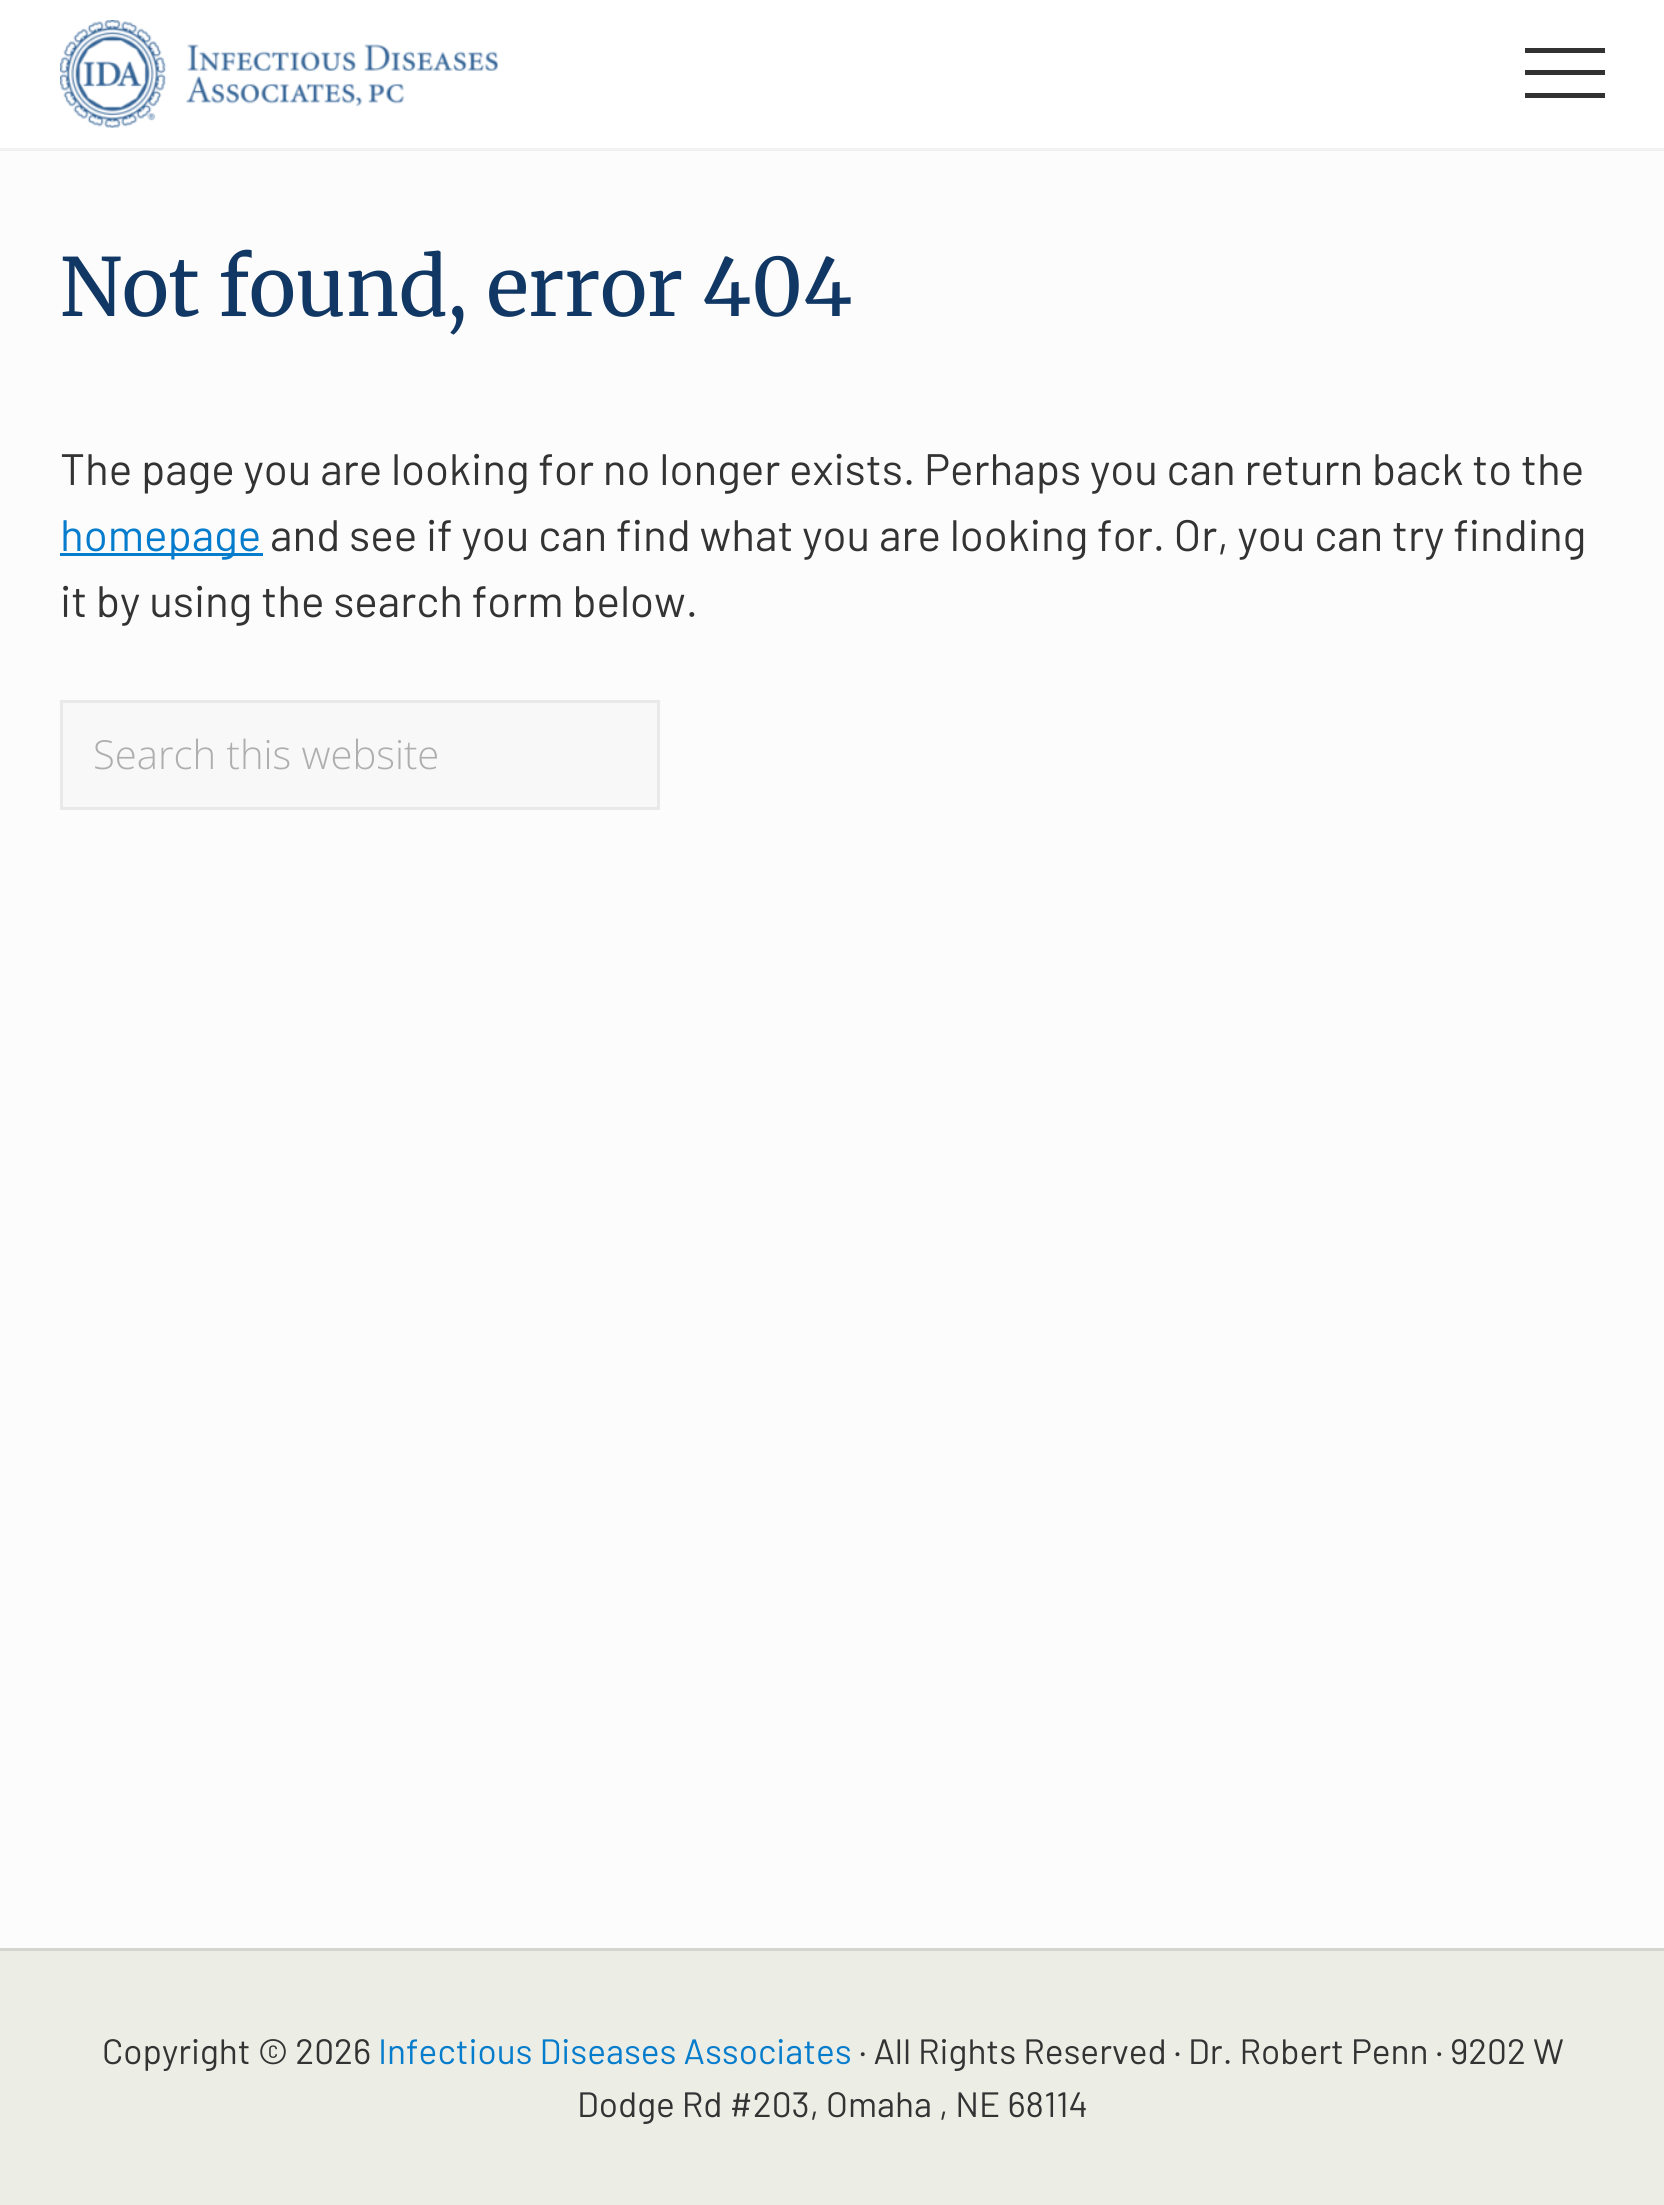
#include <cairo.h>
#include <math.h>
#include <stddef.h>

static cairo_t *ctx;

static void use_color(int r, int g, int b) {
    cairo_set_source_rgb(ctx, r / 255.0, g / 255.0, b / 255.0);
}

static void picture(const char *path, double x, double y, double w, double h) {
    cairo_surface_t *image = cairo_image_surface_create_from_png(path);
    cairo_save(ctx);
    cairo_set_source_surface(ctx, image, x, y);
    cairo_rectangle(ctx, x, y, w, h);
    cairo_fill(ctx);
    cairo_restore(ctx);
    cairo_surface_destroy(image);
}

int main(void) {
    cairo_surface_t *surface = cairo_image_surface_create(CAIRO_FORMAT_RGB24, 1664, 2205);
    ctx = cairo_create(surface);
    cairo_font_options_t *options = cairo_font_options_create();
    cairo_font_options_set_hint_metrics(options, CAIRO_HINT_METRICS_OFF);
    cairo_font_options_set_hint_style(options, CAIRO_HINT_STYLE_NONE);
    cairo_set_font_options(ctx, options);
    cairo_set_miter_limit(ctx, 4);
    use_color(252, 252, 252);
    cairo_paint(ctx);
    use_color(239, 239, 239);
    cairo_rectangle(ctx, 0, 150, 1664, 1);
    cairo_fill(ctx);
    use_color(255, 255, 255);
    cairo_rectangle(ctx, 0, 0, 1664, 148);
    cairo_fill(ctx);
    use_color(242, 242, 242);
    cairo_rectangle(ctx, 0, 148, 1664, 2);
    cairo_fill(ctx);
    picture("img1.png", 60, 20, 438, 108);
    use_color(50, 50, 50);
    cairo_rectangle(ctx, 1525, 70, 80, 5);
    cairo_fill(ctx);
    cairo_rectangle(ctx, 1525, 48, 80, 5);
    cairo_fill(ctx);
    cairo_rectangle(ctx, 1525, 93, 80, 5);
    cairo_fill(ctx);
    cairo_select_font_face(ctx, "Merriweather Light", CAIRO_FONT_SLANT_NORMAL, CAIRO_FONT_WEIGHT_NORMAL);
    cairo_set_font_size(ctx, 80);
    use_color(17, 56, 100);
    cairo_move_to(ctx, 60, 316);
    cairo_show_text(ctx, "Not found, error 404");
    cairo_select_font_face(ctx, "Barlow", CAIRO_FONT_SLANT_NORMAL, CAIRO_FONT_WEIGHT_NORMAL);
    cairo_set_font_size(ctx, 44);
    use_color(51, 51, 51);
    cairo_move_to(ctx, 60, 485);
    cairo_show_text(ctx, "The page you are looking for no longer exists. Perhaps you can return back to the");
    use_color(6, 124, 204);
    cairo_rectangle(ctx, 60, 553, 203, 3);
    cairo_fill(ctx);
    cairo_move_to(ctx, 60, 551);
    cairo_show_text(ctx, "homepage");
    use_color(51, 51, 51);
    cairo_move_to(ctx, 270, 551);
    cairo_show_text(ctx, "and see if you can find what you are looking for. Or, you can try finding");
    cairo_move_to(ctx, 60, 617);
    cairo_show_text(ctx, "it by using the search form below.");
    use_color(248, 248, 248);
    cairo_rectangle(ctx, 61.5, 701.5, 597, 107);
    cairo_fill_preserve(ctx);
    use_color(233, 233, 233);
    cairo_set_line_width(ctx, 3);
    cairo_stroke(ctx);
    cairo_select_font_face(ctx, "Open Sans Light", CAIRO_FONT_SLANT_NORMAL, CAIRO_FONT_WEIGHT_NORMAL);
    cairo_set_font_size(ctx, 40);
    use_color(174, 174, 174);
    cairo_move_to(ctx, 93, 769);
    cairo_show_text(ctx, "Search this website");
    use_color(236, 237, 229);
    cairo_rectangle(ctx, 0, 1951, 1664, 254);
    cairo_fill(ctx);
    use_color(212, 213, 206);
    cairo_rectangle(ctx, 0, 1948, 1664, 3);
    cairo_fill(ctx);
    cairo_select_font_face(ctx, "Barlow", CAIRO_FONT_SLANT_NORMAL, CAIRO_FONT_WEIGHT_NORMAL);
    cairo_set_font_size(ctx, 35.2);
    use_color(51, 51, 51);
    cairo_move_to(ctx, 102, 2064);
    cairo_show_text(ctx, "Copyright © 2026");
    use_color(6, 124, 204);
    cairo_move_to(ctx, 378, 2064);
    cairo_show_text(ctx, "Infectious Diseases Associates");
    use_color(51, 51, 51);
    cairo_move_to(ctx, 859, 2064);
    cairo_show_text(ctx, "· All Rights Reserved · Dr. Robert Penn · 9202 W");
    cairo_move_to(ctx, 577, 2117);
    cairo_show_text(ctx, "Dodge Rd #203, Omaha , NE 68114");
    cairo_surface_write_to_png(surface, "result.png");
    cairo_font_options_destroy(options);
    cairo_destroy(ctx);
    cairo_surface_destroy(surface);
    return 0;
}
